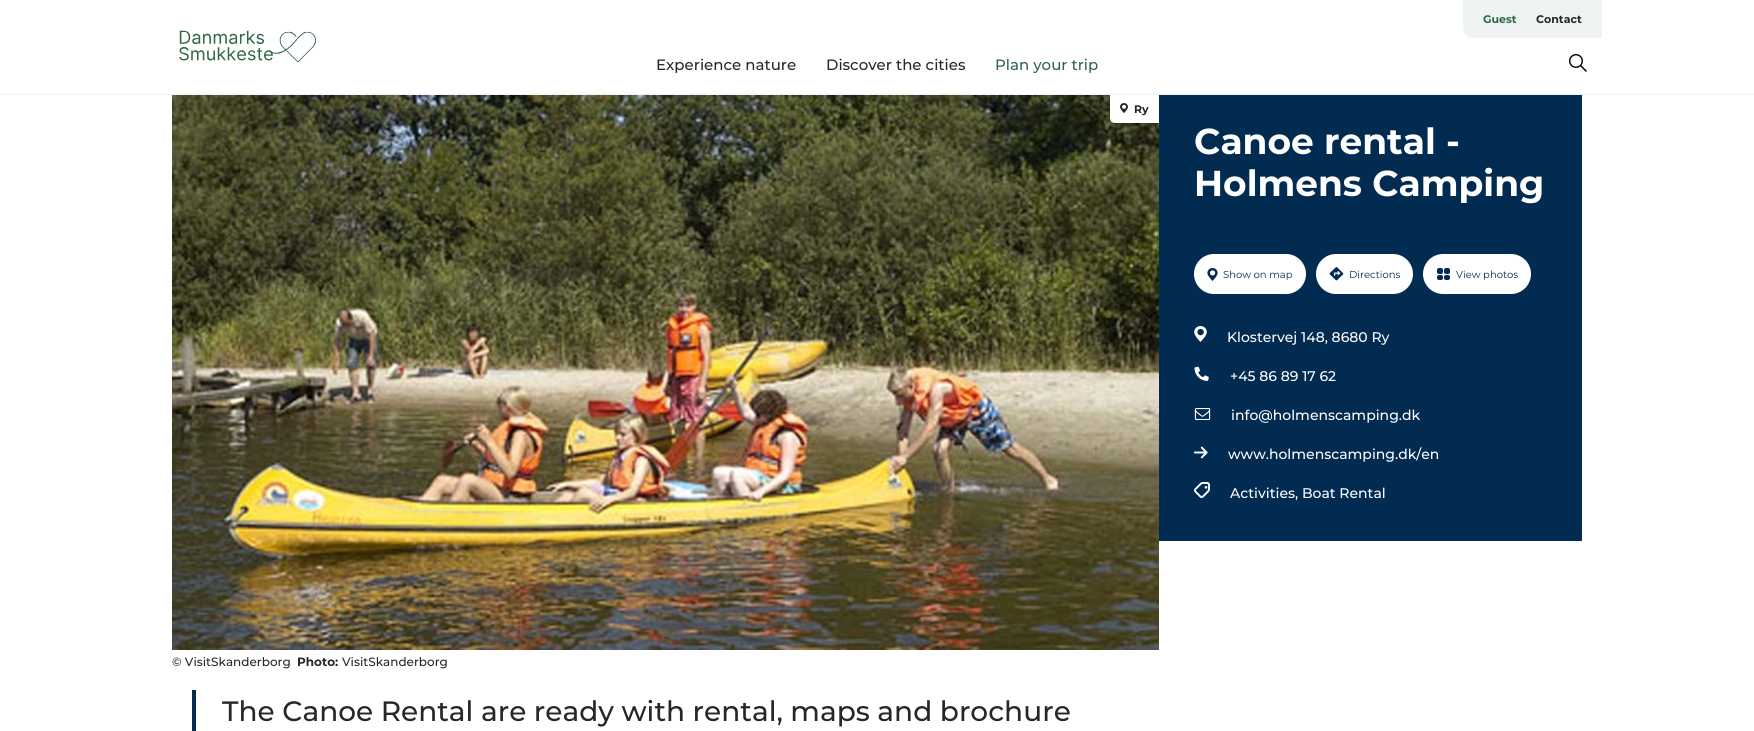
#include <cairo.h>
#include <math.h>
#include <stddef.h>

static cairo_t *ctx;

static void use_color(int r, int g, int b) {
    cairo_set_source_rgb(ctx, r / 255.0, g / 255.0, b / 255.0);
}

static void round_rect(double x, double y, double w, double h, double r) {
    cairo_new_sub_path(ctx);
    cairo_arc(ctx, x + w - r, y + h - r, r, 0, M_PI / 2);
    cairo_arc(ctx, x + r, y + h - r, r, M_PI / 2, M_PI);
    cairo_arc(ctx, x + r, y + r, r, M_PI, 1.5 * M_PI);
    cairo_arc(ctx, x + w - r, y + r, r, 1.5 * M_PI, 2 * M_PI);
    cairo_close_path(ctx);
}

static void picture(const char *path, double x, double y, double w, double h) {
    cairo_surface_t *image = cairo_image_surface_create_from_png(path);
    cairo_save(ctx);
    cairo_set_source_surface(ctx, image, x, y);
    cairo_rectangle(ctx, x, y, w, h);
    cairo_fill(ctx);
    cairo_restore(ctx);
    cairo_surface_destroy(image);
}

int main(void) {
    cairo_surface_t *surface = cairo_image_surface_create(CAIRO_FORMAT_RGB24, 1754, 731);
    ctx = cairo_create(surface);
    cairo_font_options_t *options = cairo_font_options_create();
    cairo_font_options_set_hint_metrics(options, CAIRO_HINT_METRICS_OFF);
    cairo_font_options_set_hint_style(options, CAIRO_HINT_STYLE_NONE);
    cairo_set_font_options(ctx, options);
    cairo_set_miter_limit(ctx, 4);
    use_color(255, 255, 255);
    cairo_paint(ctx);
    use_color(240, 241, 243);
    cairo_rectangle(ctx, 0, 94, 1754, 1);
    cairo_fill(ctx);
    picture("img1.png", 179, 30, 137, 33);
    use_color(239, 243, 244);
    cairo_new_path(ctx);
    cairo_move_to(ctx, 1463, 0);
    cairo_line_to(ctx, 1602, 0);
    cairo_line_to(ctx, 1602, 38);
    cairo_line_to(ctx, 1473, 38);
    cairo_curve_to(ctx, 1467.5, 38, 1463, 33.5, 1463, 28);
    cairo_close_path(ctx);
    cairo_fill(ctx);
    cairo_select_font_face(ctx, "Montserrat", CAIRO_FONT_SLANT_NORMAL, CAIRO_FONT_WEIGHT_BOLD);
    cairo_set_font_size(ctx, 11);
    use_color(48, 102, 70);
    cairo_move_to(ctx, 1483, 23);
    cairo_show_text(ctx, "Guest");
    use_color(40, 38, 38);
    cairo_move_to(ctx, 1536, 23);
    cairo_show_text(ctx, "Contact");
    cairo_select_font_face(ctx, "Montserrat Medium", CAIRO_FONT_SLANT_NORMAL, CAIRO_FONT_WEIGHT_NORMAL);
    cairo_set_font_size(ctx, 15);
    cairo_move_to(ctx, 656, 70);
    cairo_show_text(ctx, "Experience nature");
    cairo_move_to(ctx, 826, 70);
    cairo_show_text(ctx, "Discover the cities");
    use_color(48, 102, 70);
    cairo_move_to(ctx, 995, 70);
    cairo_show_text(ctx, "Plan your trip");
    picture("img2.png", 1569, 54, 18, 18);
    picture("img3.png", 172, 95, 987, 555);
    use_color(255, 255, 255);
    cairo_new_path(ctx);
    cairo_move_to(ctx, 1110, 95);
    cairo_line_to(ctx, 1159, 95);
    cairo_line_to(ctx, 1159, 123);
    cairo_line_to(ctx, 1115, 123);
    cairo_curve_to(ctx, 1112, 123, 1110, 121, 1110, 118);
    cairo_close_path(ctx);
    cairo_fill(ctx);
    picture("img4.png", 1120, 103, 8, 10);
    cairo_select_font_face(ctx, "Montserrat", CAIRO_FONT_SLANT_NORMAL, CAIRO_FONT_WEIGHT_BOLD);
    cairo_set_font_size(ctx, 11);
    use_color(40, 38, 38);
    cairo_move_to(ctx, 1134, 113);
    cairo_show_text(ctx, "Ry");
    cairo_select_font_face(ctx, "Montserrat Medium", CAIRO_FONT_SLANT_NORMAL, CAIRO_FONT_WEIGHT_NORMAL);
    cairo_set_font_size(ctx, 12);
    cairo_move_to(ctx, 172, 666);
    cairo_show_text(ctx, "© VisitSkanderborg");
    cairo_select_font_face(ctx, "Montserrat", CAIRO_FONT_SLANT_NORMAL, CAIRO_FONT_WEIGHT_BOLD);
    cairo_move_to(ctx, 297, 666);
    cairo_show_text(ctx, "Photo:");
    cairo_select_font_face(ctx, "Montserrat Medium", CAIRO_FONT_SLANT_NORMAL, CAIRO_FONT_WEIGHT_NORMAL);
    cairo_move_to(ctx, 342, 666);
    cairo_show_text(ctx, "VisitSkanderborg");
    use_color(2, 43, 82);
    cairo_rectangle(ctx, 1159, 95, 423, 446);
    cairo_fill(ctx);
    cairo_select_font_face(ctx, "Montserrat", CAIRO_FONT_SLANT_NORMAL, CAIRO_FONT_WEIGHT_BOLD);
    cairo_set_font_size(ctx, 36);
    use_color(255, 255, 255);
    cairo_move_to(ctx, 1194, 154);
    cairo_show_text(ctx, "Canoe rental -");
    cairo_move_to(ctx, 1194, 196);
    cairo_show_text(ctx, "Holmens Camping");
    round_rect(1194, 254, 112, 40, 20);
    cairo_fill(ctx);
    picture("img5.png", 1207, 268, 11, 13);
    cairo_select_font_face(ctx, "Montserrat", CAIRO_FONT_SLANT_NORMAL, CAIRO_FONT_WEIGHT_NORMAL);
    cairo_set_font_size(ctx, 10);
    use_color(2, 43, 82);
    cairo_move_to(ctx, 1223, 278);
    cairo_show_text(ctx, "Show on map");
    use_color(255, 255, 255);
    round_rect(1316, 254, 97, 40, 20);
    cairo_fill(ctx);
    picture("img6.png", 1329, 267, 15, 14);
    use_color(2, 43, 82);
    cairo_move_to(ctx, 1349, 278);
    cairo_show_text(ctx, "Directions");
    use_color(255, 255, 255);
    round_rect(1423, 254, 108, 40, 20);
    cairo_fill(ctx);
    picture("img7.png", 1437, 268, 13, 12);
    use_color(2, 43, 82);
    cairo_move_to(ctx, 1456, 278);
    cairo_show_text(ctx, "View photos");
    picture("img8.png", 1194, 326, 13, 16);
    cairo_select_font_face(ctx, "Montserrat Medium", CAIRO_FONT_SLANT_NORMAL, CAIRO_FONT_WEIGHT_NORMAL);
    cairo_set_font_size(ctx, 14);
    use_color(255, 255, 255);
    cairo_move_to(ctx, 1227, 342);
    cairo_show_text(ctx, "Klostervej 148, 8680 Ry");
    picture("img9.png", 1194, 366, 15, 15);
    cairo_move_to(ctx, 1230, 381);
    cairo_show_text(ctx, "+45 86 89 17 62");
    picture("img10.png", 1194, 408, 17, 12);
    cairo_move_to(ctx, 1231, 420);
    cairo_show_text(ctx, "info@holmenscamping.dk");
    picture("img11.png", 1194, 446, 14, 13);
    cairo_move_to(ctx, 1228, 459);
    cairo_show_text(ctx, "www.holmenscamping.dk/en");
    picture("img12.png", 1194, 482, 16, 16);
    cairo_move_to(ctx, 1230, 498);
    cairo_show_text(ctx, "Activities, Boat Rental");
    use_color(2, 43, 82);
    cairo_rectangle(ctx, 192, 690, 4, 41);
    cairo_fill(ctx);
    cairo_set_font_size(ctx, 28);
    use_color(40, 38, 38);
    cairo_move_to(ctx, 222, 721);
    cairo_show_text(ctx, "The Canoe Rental are ready with rental, maps and brochure");
    cairo_surface_write_to_png(surface, "result.png");
    cairo_font_options_destroy(options);
    cairo_destroy(ctx);
    cairo_surface_destroy(surface);
    return 0;
}
